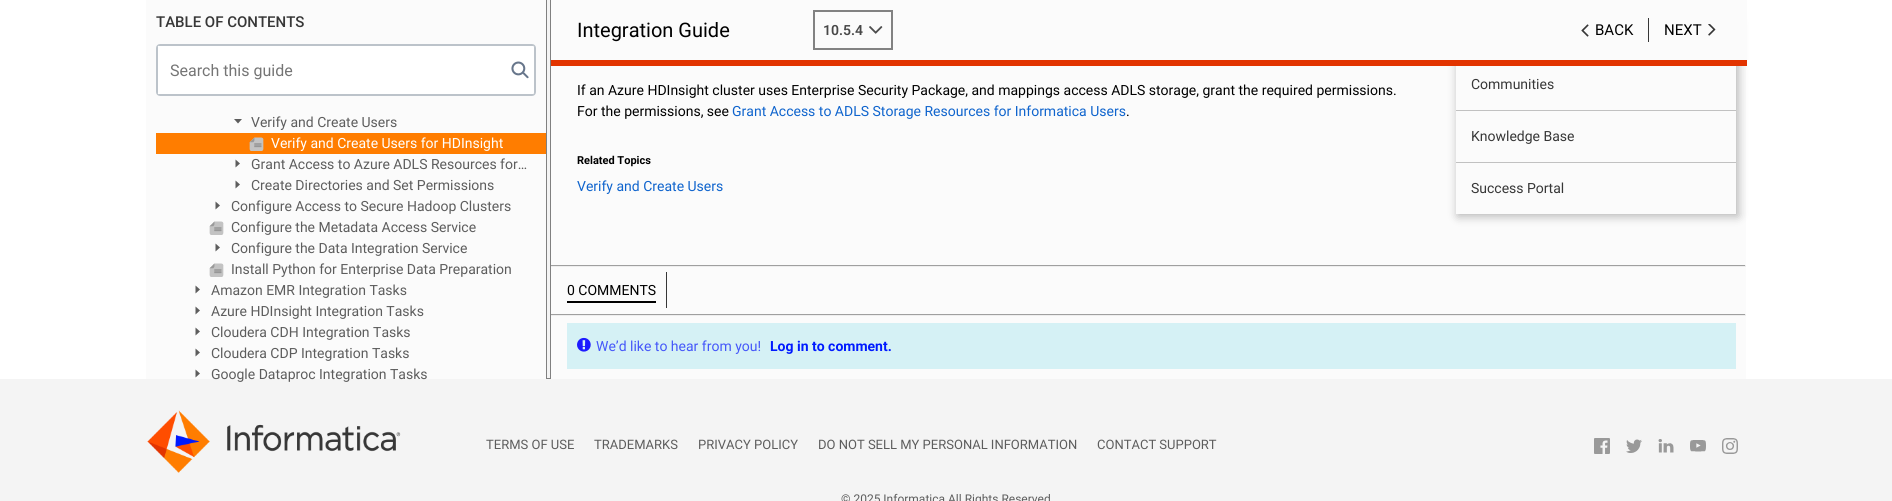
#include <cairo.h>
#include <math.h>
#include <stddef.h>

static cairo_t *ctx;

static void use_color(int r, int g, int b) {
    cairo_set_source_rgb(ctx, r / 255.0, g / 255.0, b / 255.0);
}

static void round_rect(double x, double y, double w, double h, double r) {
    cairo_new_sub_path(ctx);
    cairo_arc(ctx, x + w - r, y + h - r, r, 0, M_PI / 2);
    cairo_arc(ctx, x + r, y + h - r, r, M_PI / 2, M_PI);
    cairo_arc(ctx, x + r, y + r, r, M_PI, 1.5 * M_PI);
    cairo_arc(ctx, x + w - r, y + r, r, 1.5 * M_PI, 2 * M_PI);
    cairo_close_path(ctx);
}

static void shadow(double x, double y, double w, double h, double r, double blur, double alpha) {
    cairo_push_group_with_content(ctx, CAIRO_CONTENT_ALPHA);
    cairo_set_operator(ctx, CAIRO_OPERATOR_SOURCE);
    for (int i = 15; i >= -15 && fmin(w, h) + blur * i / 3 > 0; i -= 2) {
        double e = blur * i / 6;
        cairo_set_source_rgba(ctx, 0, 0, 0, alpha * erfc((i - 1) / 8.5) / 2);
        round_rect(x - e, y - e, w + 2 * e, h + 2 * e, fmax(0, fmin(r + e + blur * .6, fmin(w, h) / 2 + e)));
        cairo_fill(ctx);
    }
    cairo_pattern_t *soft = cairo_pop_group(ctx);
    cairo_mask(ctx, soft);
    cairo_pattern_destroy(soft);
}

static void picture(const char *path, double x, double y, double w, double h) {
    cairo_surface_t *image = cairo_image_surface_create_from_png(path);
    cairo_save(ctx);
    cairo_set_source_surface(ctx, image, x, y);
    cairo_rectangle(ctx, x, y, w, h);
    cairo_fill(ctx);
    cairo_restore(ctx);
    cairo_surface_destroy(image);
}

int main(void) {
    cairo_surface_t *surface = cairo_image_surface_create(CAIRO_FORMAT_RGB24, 1892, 501);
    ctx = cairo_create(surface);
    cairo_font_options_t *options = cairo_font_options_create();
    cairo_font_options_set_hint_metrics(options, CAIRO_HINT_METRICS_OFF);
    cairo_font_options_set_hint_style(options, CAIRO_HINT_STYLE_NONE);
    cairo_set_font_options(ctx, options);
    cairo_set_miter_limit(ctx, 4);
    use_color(255, 255, 255);
    cairo_paint(ctx);
    use_color(251, 251, 251);
    cairo_rectangle(ctx, 146, 0, 400, 379);
    cairo_fill(ctx);
    cairo_select_font_face(ctx, "Roboto Medium", CAIRO_FONT_SLANT_NORMAL, CAIRO_FONT_WEIGHT_NORMAL);
    cairo_set_font_size(ctx, 15);
    use_color(55, 55, 55);
    cairo_move_to(ctx, 156, 27);
    cairo_show_text(ctx, "TABLE OF CONTENTS");
    use_color(255, 255, 255);
    round_rect(156.5, 44.5, 379, 51, 3.5);
    cairo_fill_preserve(ctx);
    use_color(188, 195, 202);
    cairo_set_line_width(ctx, 1);
    cairo_stroke(ctx);
    round_rect(157.5, 45.5, 377, 49, 1.5);
    cairo_stroke(ctx);
    use_color(255, 255, 255);
    cairo_rectangle(ctx, 158, 46, 1, 48);
    cairo_fill(ctx);
    cairo_select_font_face(ctx, "Roboto", CAIRO_FONT_SLANT_NORMAL, CAIRO_FONT_WEIGHT_NORMAL);
    cairo_set_font_size(ctx, 16);
    use_color(117, 117, 117);
    cairo_move_to(ctx, 170, 76);
    cairo_show_text(ctx, "Search this guide");
    picture("img1.png", 511, 61, 18, 18);
    use_color(251, 251, 251);
    cairo_rectangle(ctx, 551, 66, 1195, 313);
    cairo_fill(ctx);
    cairo_save(ctx);
    cairo_set_fill_rule(ctx, CAIRO_FILL_RULE_EVEN_ODD);
    cairo_new_path(ctx);
    cairo_move_to(ctx, 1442, 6);
    cairo_line_to(ctx, 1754, 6);
    cairo_line_to(ctx, 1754, 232);
    cairo_line_to(ctx, 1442, 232);
    cairo_close_path(ctx);
    cairo_move_to(ctx, 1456, 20);
    cairo_line_to(ctx, 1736, 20);
    cairo_line_to(ctx, 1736, 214);
    cairo_line_to(ctx, 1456, 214);
    cairo_close_path(ctx);
    cairo_clip(ctx);
    use_color(0, 0, 0);
    shadow(1458, 22, 280, 194, 0, 5, 0.3);
    cairo_restore(ctx);
    use_color(226, 52, 0);
    cairo_rectangle(ctx, 547, 60, 1200, 6);
    cairo_fill(ctx);
    use_color(159, 159, 159);
    cairo_rectangle(ctx, 547, 265, 1199, 1);
    cairo_fill(ctx);
    use_color(238, 238, 238);
    cairo_rectangle(ctx, 1745, 265, 1, 2);
    cairo_fill(ctx);
    cairo_rectangle(ctx, 547, 266, 1199, 1);
    cairo_fill(ctx);
    use_color(159, 159, 159);
    cairo_rectangle(ctx, 547, 314, 1199, 1);
    cairo_fill(ctx);
    use_color(238, 238, 238);
    cairo_rectangle(ctx, 1745, 314, 1, 2);
    cairo_fill(ctx);
    cairo_rectangle(ctx, 547, 315, 1199, 1);
    cairo_fill(ctx);
    use_color(244, 244, 244);
    cairo_rectangle(ctx, 547, 0, 3, 379);
    cairo_fill(ctx);
    use_color(128, 128, 128);
    cairo_rectangle(ctx, 550, 0, 1, 379);
    cairo_fill(ctx);
    cairo_rectangle(ctx, 546, 378, 5, 1);
    cairo_fill(ctx);
    cairo_rectangle(ctx, 546, 0, 1, 379);
    cairo_fill(ctx);
    use_color(255, 125, 0);
    cairo_rectangle(ctx, 156, 133, 390, 21);
    cairo_fill(ctx);
    use_color(93, 93, 93);
    cairo_new_path(ctx);
    cairo_move_to(ctx, 242, 119);
    cairo_line_to(ctx, 238, 123.5);
    cairo_line_to(ctx, 234, 119);
    cairo_close_path(ctx);
    cairo_move_to(ctx, 235.5, 159.5);
    cairo_line_to(ctx, 240, 163.5);
    cairo_line_to(ctx, 235.5, 167.5);
    cairo_close_path(ctx);
    cairo_fill(ctx);
    cairo_set_font_size(ctx, 14);
    cairo_move_to(ctx, 251, 127);
    cairo_show_text(ctx, "Verify and Create Users");
    picture("img2.png", 249, 137, 15, 14);
    use_color(255, 255, 255);
    cairo_move_to(ctx, 271, 148);
    cairo_show_text(ctx, "Verify and Create Users for HDInsight");
    use_color(93, 93, 93);
    cairo_move_to(ctx, 251, 169);
    cairo_show_text(ctx, "Grant Access to Azure ADLS Resources for…");
    cairo_new_path(ctx);
    cairo_move_to(ctx, 235.5, 180.5);
    cairo_line_to(ctx, 240, 184.5);
    cairo_line_to(ctx, 235.5, 188.5);
    cairo_close_path(ctx);
    cairo_move_to(ctx, 215.5, 201.5);
    cairo_line_to(ctx, 220, 205.5);
    cairo_line_to(ctx, 215.5, 209.5);
    cairo_close_path(ctx);
    cairo_fill(ctx);
    cairo_move_to(ctx, 251, 190);
    cairo_show_text(ctx, "Create Directories and Set Permissions");
    cairo_move_to(ctx, 231, 211);
    cairo_show_text(ctx, "Configure Access to Secure Hadoop Clusters");
    picture("img3.png", 209, 221, 15, 14);
    cairo_move_to(ctx, 231, 232);
    cairo_show_text(ctx, "Configure the Metadata Access Service");
    picture("img3.png", 209, 263, 15, 14);
    cairo_new_path(ctx);
    cairo_move_to(ctx, 215.5, 243.5);
    cairo_line_to(ctx, 220, 247.5);
    cairo_line_to(ctx, 215.5, 251.5);
    cairo_close_path(ctx);
    cairo_move_to(ctx, 195.5, 285.5);
    cairo_line_to(ctx, 200, 289.5);
    cairo_line_to(ctx, 195.5, 293.5);
    cairo_close_path(ctx);
    cairo_fill(ctx);
    cairo_move_to(ctx, 231, 253);
    cairo_show_text(ctx, "Configure the Data Integration Service");
    cairo_move_to(ctx, 231, 274);
    cairo_show_text(ctx, "Install Python for Enterprise Data Preparation");
    cairo_move_to(ctx, 211, 295);
    cairo_show_text(ctx, "Amazon EMR Integration Tasks");
    cairo_new_path(ctx);
    cairo_move_to(ctx, 195.5, 306.5);
    cairo_line_to(ctx, 200, 310.5);
    cairo_line_to(ctx, 195.5, 314.5);
    cairo_close_path(ctx);
    cairo_move_to(ctx, 195.5, 327.5);
    cairo_line_to(ctx, 200, 331.5);
    cairo_line_to(ctx, 195.5, 335.5);
    cairo_close_path(ctx);
    cairo_move_to(ctx, 195.5, 348.5);
    cairo_line_to(ctx, 200, 352.5);
    cairo_line_to(ctx, 195.5, 356.5);
    cairo_close_path(ctx);
    cairo_fill(ctx);
    cairo_move_to(ctx, 211, 316);
    cairo_show_text(ctx, "Azure HDInsight Integration Tasks");
    cairo_move_to(ctx, 211, 337);
    cairo_show_text(ctx, "Cloudera CDH Integration Tasks");
    cairo_move_to(ctx, 211, 358);
    cairo_show_text(ctx, "Cloudera CDP Integration Tasks");
    cairo_new_path(ctx);
    cairo_move_to(ctx, 195.5, 369.5);
    cairo_line_to(ctx, 200, 373.5);
    cairo_line_to(ctx, 195.5, 377.5);
    cairo_close_path(ctx);
    cairo_fill(ctx);
    use_color(244, 244, 244);
    cairo_rectangle(ctx, 0, 379, 1892, 122);
    cairo_fill(ctx);
    use_color(93, 93, 93);
    cairo_move_to(ctx, 211, 379);
    cairo_show_text(ctx, "Google Dataproc Integration Tasks");
    use_color(251, 251, 251);
    cairo_rectangle(ctx, 551, 0, 1196, 60);
    cairo_fill(ctx);
    cairo_set_font_size(ctx, 20);
    use_color(0, 0, 0);
    cairo_move_to(ctx, 577, 37);
    cairo_show_text(ctx, "Integration Guide");
    cairo_rectangle(ctx, 814, 11, 78, 38);
    use_color(130, 130, 130);
    cairo_set_line_width(ctx, 2);
    cairo_stroke(ctx);
    cairo_select_font_face(ctx, "Roboto SemiBold", CAIRO_FONT_SLANT_NORMAL, CAIRO_FONT_WEIGHT_NORMAL);
    cairo_set_font_size(ctx, 14);
    use_color(72, 72, 72);
    cairo_move_to(ctx, 823, 35);
    cairo_show_text(ctx, "10.5.4");
    picture("img4.png", 869, 26, 14, 8);
    picture("img5.png", 1581, 24, 8, 13);
    cairo_select_font_face(ctx, "Roboto", CAIRO_FONT_SLANT_NORMAL, CAIRO_FONT_WEIGHT_NORMAL);
    cairo_set_font_size(ctx, 15);
    use_color(0, 0, 0);
    cairo_move_to(ctx, 1595, 35);
    cairo_show_text(ctx, "BACK");
    use_color(55, 55, 55);
    cairo_rectangle(ctx, 1648, 18, 1, 24);
    cairo_fill(ctx);
    use_color(0, 0, 0);
    cairo_move_to(ctx, 1664, 35);
    cairo_show_text(ctx, "NEXT");
    picture("img6.png", 1708, 24, 8, 12);
    cairo_set_font_size(ctx, 14);
    cairo_move_to(ctx, 577, 95);
    cairo_show_text(ctx, "If an Azure HDInsight cluster uses Enterprise Security Package, and mappings access ADLS storage, grant the required permissions.");
    cairo_move_to(ctx, 577, 116);
    cairo_show_text(ctx, "For the permissions, see");
    use_color(15, 100, 205);
    cairo_move_to(ctx, 732, 116);
    cairo_show_text(ctx, "Grant Access to ADLS Storage Resources for Informatica Users");
    use_color(0, 0, 0);
    cairo_move_to(ctx, 1126, 116);
    cairo_show_text(ctx, ".");
    cairo_select_font_face(ctx, "Roboto", CAIRO_FONT_SLANT_NORMAL, CAIRO_FONT_WEIGHT_BOLD);
    cairo_set_font_size(ctx, 11);
    cairo_move_to(ctx, 577, 164);
    cairo_show_text(ctx, "Related Topics");
    cairo_select_font_face(ctx, "Roboto", CAIRO_FONT_SLANT_NORMAL, CAIRO_FONT_WEIGHT_NORMAL);
    cairo_set_font_size(ctx, 14);
    use_color(15, 100, 205);
    cairo_move_to(ctx, 577, 191);
    cairo_show_text(ctx, "Verify and Create Users");
    use_color(193, 193, 193);
    cairo_rectangle(ctx, 1456, 110, 280, 1);
    cairo_fill(ctx);
    use_color(55, 55, 55);
    cairo_move_to(ctx, 1471, 89);
    cairo_show_text(ctx, "Communities");
    use_color(193, 193, 193);
    cairo_rectangle(ctx, 1456, 162, 280, 1);
    cairo_fill(ctx);
    use_color(55, 55, 55);
    cairo_move_to(ctx, 1471, 141);
    cairo_show_text(ctx, "Knowledge Base");
    cairo_move_to(ctx, 1471, 193);
    cairo_show_text(ctx, "Success Portal");
    use_color(0, 0, 0);
    cairo_rectangle(ctx, 567, 301, 89, 2);
    cairo_fill(ctx);
    cairo_move_to(ctx, 567, 295);
    cairo_show_text(ctx, "0 COMMENTS");
    use_color(55, 55, 55);
    cairo_rectangle(ctx, 666, 272, 1, 36);
    cairo_fill(ctx);
    use_color(213, 241, 245);
    cairo_rectangle(ctx, 567, 323, 1169, 46);
    cairo_fill(ctx);
    picture("img7.png", 577, 337, 14, 15);
    use_color(69, 87, 249);
    cairo_move_to(ctx, 596, 351);
    cairo_show_text(ctx, "We’d like to hear from you!");
    cairo_select_font_face(ctx, "Roboto", CAIRO_FONT_SLANT_NORMAL, CAIRO_FONT_WEIGHT_BOLD);
    use_color(0, 26, 255);
    cairo_move_to(ctx, 770, 351);
    cairo_show_text(ctx, "Log in to comment.");
    picture("img8.png", 147, 410, 254, 63);
    cairo_select_font_face(ctx, "Roboto", CAIRO_FONT_SLANT_NORMAL, CAIRO_FONT_WEIGHT_NORMAL);
    cairo_set_font_size(ctx, 13);
    use_color(93, 93, 93);
    cairo_move_to(ctx, 486, 449);
    cairo_show_text(ctx, "TERMS OF USE");
    cairo_move_to(ctx, 594, 449);
    cairo_show_text(ctx, "TRADEMARKS");
    cairo_move_to(ctx, 698, 449);
    cairo_show_text(ctx, "PRIVACY POLICY");
    cairo_move_to(ctx, 818, 449);
    cairo_show_text(ctx, "DO NOT SELL MY PERSONAL INFORMATION");
    cairo_move_to(ctx, 1097, 449);
    cairo_show_text(ctx, "CONTACT SUPPORT");
    picture("img9.png", 1594, 438, 16, 16);
    picture("img10.png", 1626, 439, 16, 14);
    picture("img11.png", 1658, 439, 16, 14);
    picture("img12.png", 1690, 440, 16, 12);
    picture("img13.png", 1722, 438, 16, 16);
    cairo_set_font_size(ctx, 12);
    cairo_move_to(ctx, 841, 503);
    cairo_show_text(ctx, "© 2025 Informatica All Rights Reserved");
    cairo_surface_write_to_png(surface, "result.png");
    cairo_font_options_destroy(options);
    cairo_destroy(ctx);
    cairo_surface_destroy(surface);
    return 0;
}
